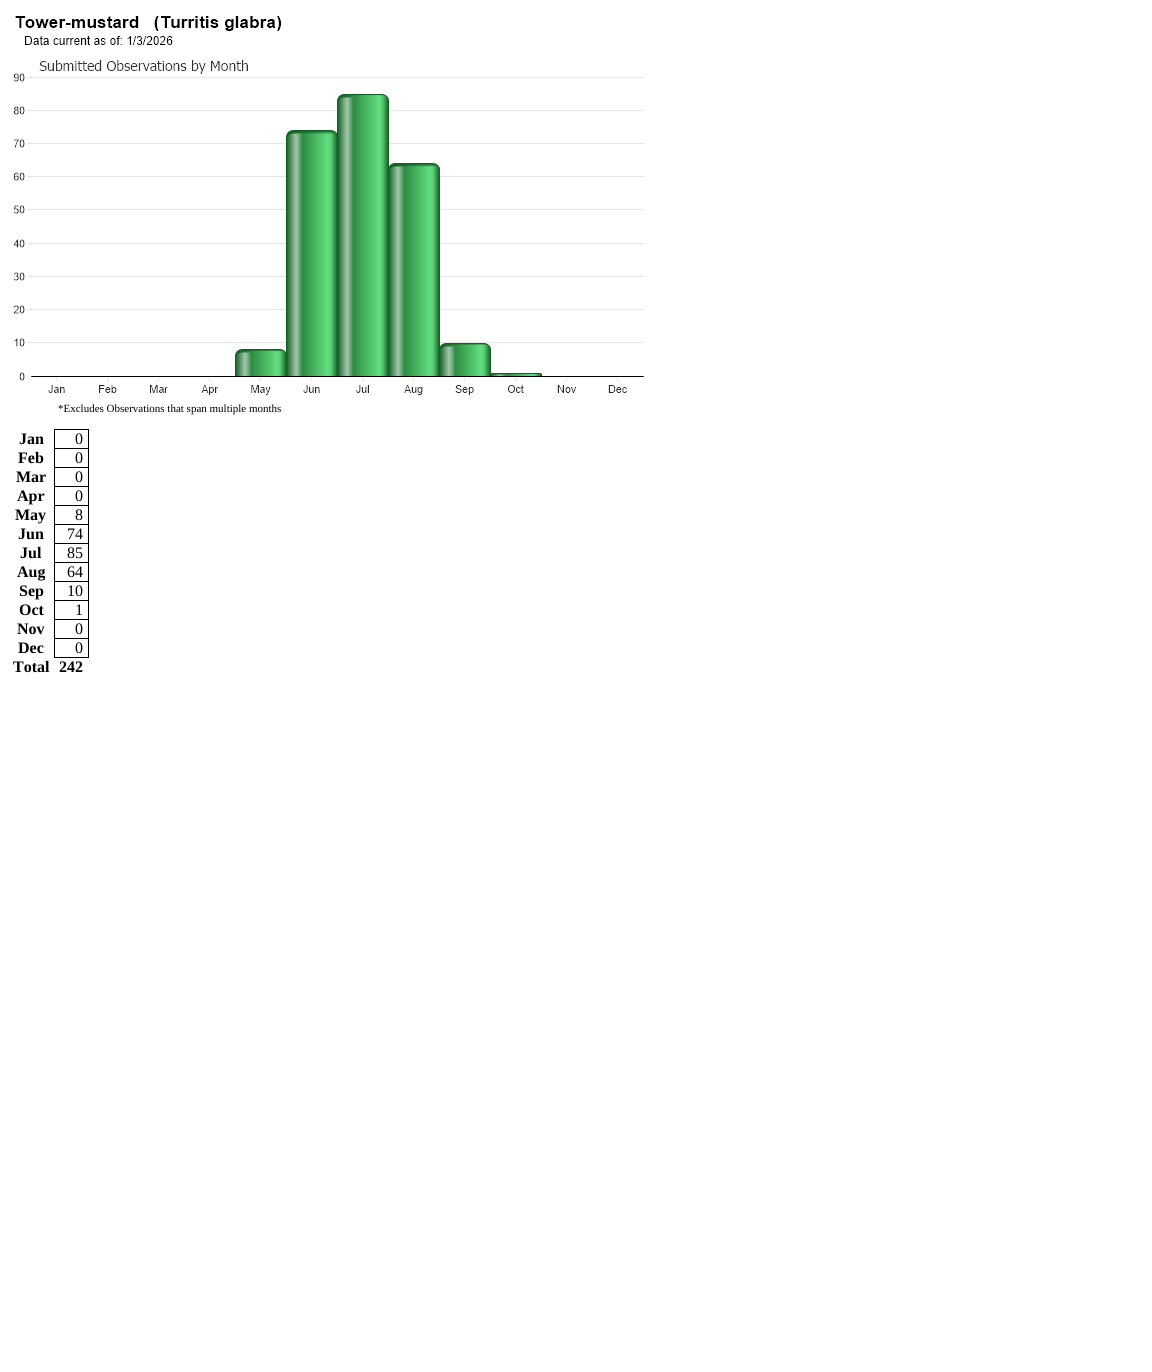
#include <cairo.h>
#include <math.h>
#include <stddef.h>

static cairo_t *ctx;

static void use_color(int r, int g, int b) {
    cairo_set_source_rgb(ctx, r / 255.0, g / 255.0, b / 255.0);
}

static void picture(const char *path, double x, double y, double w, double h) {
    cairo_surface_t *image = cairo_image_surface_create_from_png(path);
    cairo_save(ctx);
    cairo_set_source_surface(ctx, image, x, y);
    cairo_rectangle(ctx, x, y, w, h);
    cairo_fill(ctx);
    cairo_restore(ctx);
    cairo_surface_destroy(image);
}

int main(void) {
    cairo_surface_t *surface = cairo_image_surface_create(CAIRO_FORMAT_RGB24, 1152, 1372);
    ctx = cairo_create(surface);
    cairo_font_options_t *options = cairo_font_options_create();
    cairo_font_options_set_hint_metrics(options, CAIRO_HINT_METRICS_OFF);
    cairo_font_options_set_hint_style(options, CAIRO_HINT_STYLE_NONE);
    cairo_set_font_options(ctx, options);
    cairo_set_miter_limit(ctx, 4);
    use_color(255, 255, 255);
    cairo_paint(ctx);
    picture("img1.png", 13, 16, 631, 379);
    cairo_select_font_face(ctx, "Liberation Serif", CAIRO_FONT_SLANT_NORMAL, CAIRO_FONT_WEIGHT_NORMAL);
    cairo_set_font_size(ctx, 11);
    use_color(0, 0, 0);
    cairo_move_to(ctx, 58, 412);
    cairo_show_text(ctx, "*Excludes Observations that span multiple months");
    cairo_select_font_face(ctx, "Liberation Serif", CAIRO_FONT_SLANT_NORMAL, CAIRO_FONT_WEIGHT_BOLD);
    cairo_set_font_size(ctx, 16);
    cairo_move_to(ctx, 19, 444);
    cairo_show_text(ctx, "Jan");
    cairo_rectangle(ctx, 54, 429, 35, 1);
    cairo_fill(ctx);
    cairo_rectangle(ctx, 54, 448, 35, 1);
    cairo_fill(ctx);
    cairo_rectangle(ctx, 54, 467, 35, 1);
    cairo_fill(ctx);
    cairo_rectangle(ctx, 54, 486, 35, 1);
    cairo_fill(ctx);
    cairo_rectangle(ctx, 54, 505, 35, 1);
    cairo_fill(ctx);
    cairo_rectangle(ctx, 54, 524, 35, 1);
    cairo_fill(ctx);
    cairo_rectangle(ctx, 54, 543, 35, 1);
    cairo_fill(ctx);
    cairo_rectangle(ctx, 54, 562, 35, 1);
    cairo_fill(ctx);
    cairo_rectangle(ctx, 54, 581, 35, 1);
    cairo_fill(ctx);
    cairo_rectangle(ctx, 54, 600, 35, 1);
    cairo_fill(ctx);
    cairo_rectangle(ctx, 54, 619, 35, 1);
    cairo_fill(ctx);
    cairo_rectangle(ctx, 54, 638, 35, 1);
    cairo_fill(ctx);
    cairo_rectangle(ctx, 88, 638, 1, 20);
    cairo_fill(ctx);
    cairo_rectangle(ctx, 88, 619, 1, 20);
    cairo_fill(ctx);
    cairo_rectangle(ctx, 88, 600, 1, 20);
    cairo_fill(ctx);
    cairo_rectangle(ctx, 88, 581, 1, 20);
    cairo_fill(ctx);
    cairo_rectangle(ctx, 88, 562, 1, 20);
    cairo_fill(ctx);
    cairo_rectangle(ctx, 88, 543, 1, 20);
    cairo_fill(ctx);
    cairo_rectangle(ctx, 88, 524, 1, 20);
    cairo_fill(ctx);
    cairo_rectangle(ctx, 88, 505, 1, 20);
    cairo_fill(ctx);
    cairo_rectangle(ctx, 88, 486, 1, 20);
    cairo_fill(ctx);
    cairo_rectangle(ctx, 88, 467, 1, 20);
    cairo_fill(ctx);
    cairo_rectangle(ctx, 88, 448, 1, 20);
    cairo_fill(ctx);
    cairo_rectangle(ctx, 88, 429, 1, 20);
    cairo_fill(ctx);
    cairo_rectangle(ctx, 54, 657, 35, 1);
    cairo_fill(ctx);
    cairo_rectangle(ctx, 54, 638, 1, 20);
    cairo_fill(ctx);
    cairo_rectangle(ctx, 54, 619, 1, 20);
    cairo_fill(ctx);
    cairo_rectangle(ctx, 54, 600, 1, 20);
    cairo_fill(ctx);
    cairo_rectangle(ctx, 54, 581, 1, 20);
    cairo_fill(ctx);
    cairo_rectangle(ctx, 54, 562, 1, 20);
    cairo_fill(ctx);
    cairo_rectangle(ctx, 54, 543, 1, 20);
    cairo_fill(ctx);
    cairo_rectangle(ctx, 54, 524, 1, 20);
    cairo_fill(ctx);
    cairo_rectangle(ctx, 54, 505, 1, 20);
    cairo_fill(ctx);
    cairo_rectangle(ctx, 54, 486, 1, 20);
    cairo_fill(ctx);
    cairo_rectangle(ctx, 54, 467, 1, 20);
    cairo_fill(ctx);
    cairo_rectangle(ctx, 54, 448, 1, 20);
    cairo_fill(ctx);
    cairo_rectangle(ctx, 54, 429, 1, 20);
    cairo_fill(ctx);
    cairo_select_font_face(ctx, "Liberation Serif", CAIRO_FONT_SLANT_NORMAL, CAIRO_FONT_WEIGHT_NORMAL);
    cairo_move_to(ctx, 75, 444);
    cairo_show_text(ctx, "0");
    cairo_select_font_face(ctx, "Liberation Serif", CAIRO_FONT_SLANT_NORMAL, CAIRO_FONT_WEIGHT_BOLD);
    cairo_move_to(ctx, 18, 463);
    cairo_show_text(ctx, "Feb");
    cairo_select_font_face(ctx, "Liberation Serif", CAIRO_FONT_SLANT_NORMAL, CAIRO_FONT_WEIGHT_NORMAL);
    cairo_move_to(ctx, 75, 463);
    cairo_show_text(ctx, "0");
    cairo_select_font_face(ctx, "Liberation Serif", CAIRO_FONT_SLANT_NORMAL, CAIRO_FONT_WEIGHT_BOLD);
    cairo_move_to(ctx, 16, 482);
    cairo_show_text(ctx, "Mar");
    cairo_select_font_face(ctx, "Liberation Serif", CAIRO_FONT_SLANT_NORMAL, CAIRO_FONT_WEIGHT_NORMAL);
    cairo_move_to(ctx, 75, 482);
    cairo_show_text(ctx, "0");
    cairo_select_font_face(ctx, "Liberation Serif", CAIRO_FONT_SLANT_NORMAL, CAIRO_FONT_WEIGHT_BOLD);
    cairo_move_to(ctx, 17, 501);
    cairo_show_text(ctx, "Apr");
    cairo_select_font_face(ctx, "Liberation Serif", CAIRO_FONT_SLANT_NORMAL, CAIRO_FONT_WEIGHT_NORMAL);
    cairo_move_to(ctx, 75, 501);
    cairo_show_text(ctx, "0");
    cairo_select_font_face(ctx, "Liberation Serif", CAIRO_FONT_SLANT_NORMAL, CAIRO_FONT_WEIGHT_BOLD);
    cairo_move_to(ctx, 15, 520);
    cairo_show_text(ctx, "May");
    cairo_select_font_face(ctx, "Liberation Serif", CAIRO_FONT_SLANT_NORMAL, CAIRO_FONT_WEIGHT_NORMAL);
    cairo_move_to(ctx, 75, 520);
    cairo_show_text(ctx, "8");
    cairo_select_font_face(ctx, "Liberation Serif", CAIRO_FONT_SLANT_NORMAL, CAIRO_FONT_WEIGHT_BOLD);
    cairo_move_to(ctx, 18, 539);
    cairo_show_text(ctx, "Jun");
    cairo_select_font_face(ctx, "Liberation Serif", CAIRO_FONT_SLANT_NORMAL, CAIRO_FONT_WEIGHT_NORMAL);
    cairo_move_to(ctx, 67, 539);
    cairo_show_text(ctx, "74");
    cairo_select_font_face(ctx, "Liberation Serif", CAIRO_FONT_SLANT_NORMAL, CAIRO_FONT_WEIGHT_BOLD);
    cairo_move_to(ctx, 20, 558);
    cairo_show_text(ctx, "Jul");
    cairo_select_font_face(ctx, "Liberation Serif", CAIRO_FONT_SLANT_NORMAL, CAIRO_FONT_WEIGHT_NORMAL);
    cairo_move_to(ctx, 67, 558);
    cairo_show_text(ctx, "85");
    cairo_select_font_face(ctx, "Liberation Serif", CAIRO_FONT_SLANT_NORMAL, CAIRO_FONT_WEIGHT_BOLD);
    cairo_move_to(ctx, 17, 577);
    cairo_show_text(ctx, "Aug");
    cairo_select_font_face(ctx, "Liberation Serif", CAIRO_FONT_SLANT_NORMAL, CAIRO_FONT_WEIGHT_NORMAL);
    cairo_move_to(ctx, 67, 577);
    cairo_show_text(ctx, "64");
    cairo_select_font_face(ctx, "Liberation Serif", CAIRO_FONT_SLANT_NORMAL, CAIRO_FONT_WEIGHT_BOLD);
    cairo_move_to(ctx, 19, 596);
    cairo_show_text(ctx, "Sep");
    cairo_select_font_face(ctx, "Liberation Serif", CAIRO_FONT_SLANT_NORMAL, CAIRO_FONT_WEIGHT_NORMAL);
    cairo_move_to(ctx, 67, 596);
    cairo_show_text(ctx, "10");
    cairo_select_font_face(ctx, "Liberation Serif", CAIRO_FONT_SLANT_NORMAL, CAIRO_FONT_WEIGHT_BOLD);
    cairo_move_to(ctx, 19, 615);
    cairo_show_text(ctx, "Oct");
    cairo_select_font_face(ctx, "Liberation Serif", CAIRO_FONT_SLANT_NORMAL, CAIRO_FONT_WEIGHT_NORMAL);
    cairo_move_to(ctx, 75, 615);
    cairo_show_text(ctx, "1");
    cairo_select_font_face(ctx, "Liberation Serif", CAIRO_FONT_SLANT_NORMAL, CAIRO_FONT_WEIGHT_BOLD);
    cairo_move_to(ctx, 17, 634);
    cairo_show_text(ctx, "Nov");
    cairo_select_font_face(ctx, "Liberation Serif", CAIRO_FONT_SLANT_NORMAL, CAIRO_FONT_WEIGHT_NORMAL);
    cairo_move_to(ctx, 75, 634);
    cairo_show_text(ctx, "0");
    cairo_select_font_face(ctx, "Liberation Serif", CAIRO_FONT_SLANT_NORMAL, CAIRO_FONT_WEIGHT_BOLD);
    cairo_move_to(ctx, 18, 653);
    cairo_show_text(ctx, "Dec");
    cairo_select_font_face(ctx, "Liberation Serif", CAIRO_FONT_SLANT_NORMAL, CAIRO_FONT_WEIGHT_NORMAL);
    cairo_move_to(ctx, 75, 653);
    cairo_show_text(ctx, "0");
    cairo_select_font_face(ctx, "Liberation Serif", CAIRO_FONT_SLANT_NORMAL, CAIRO_FONT_WEIGHT_BOLD);
    cairo_move_to(ctx, 13, 672);
    cairo_show_text(ctx, "Total");
    cairo_move_to(ctx, 59, 672);
    cairo_show_text(ctx, "242");
    cairo_surface_write_to_png(surface, "result.png");
    cairo_font_options_destroy(options);
    cairo_destroy(ctx);
    cairo_surface_destroy(surface);
    return 0;
}
